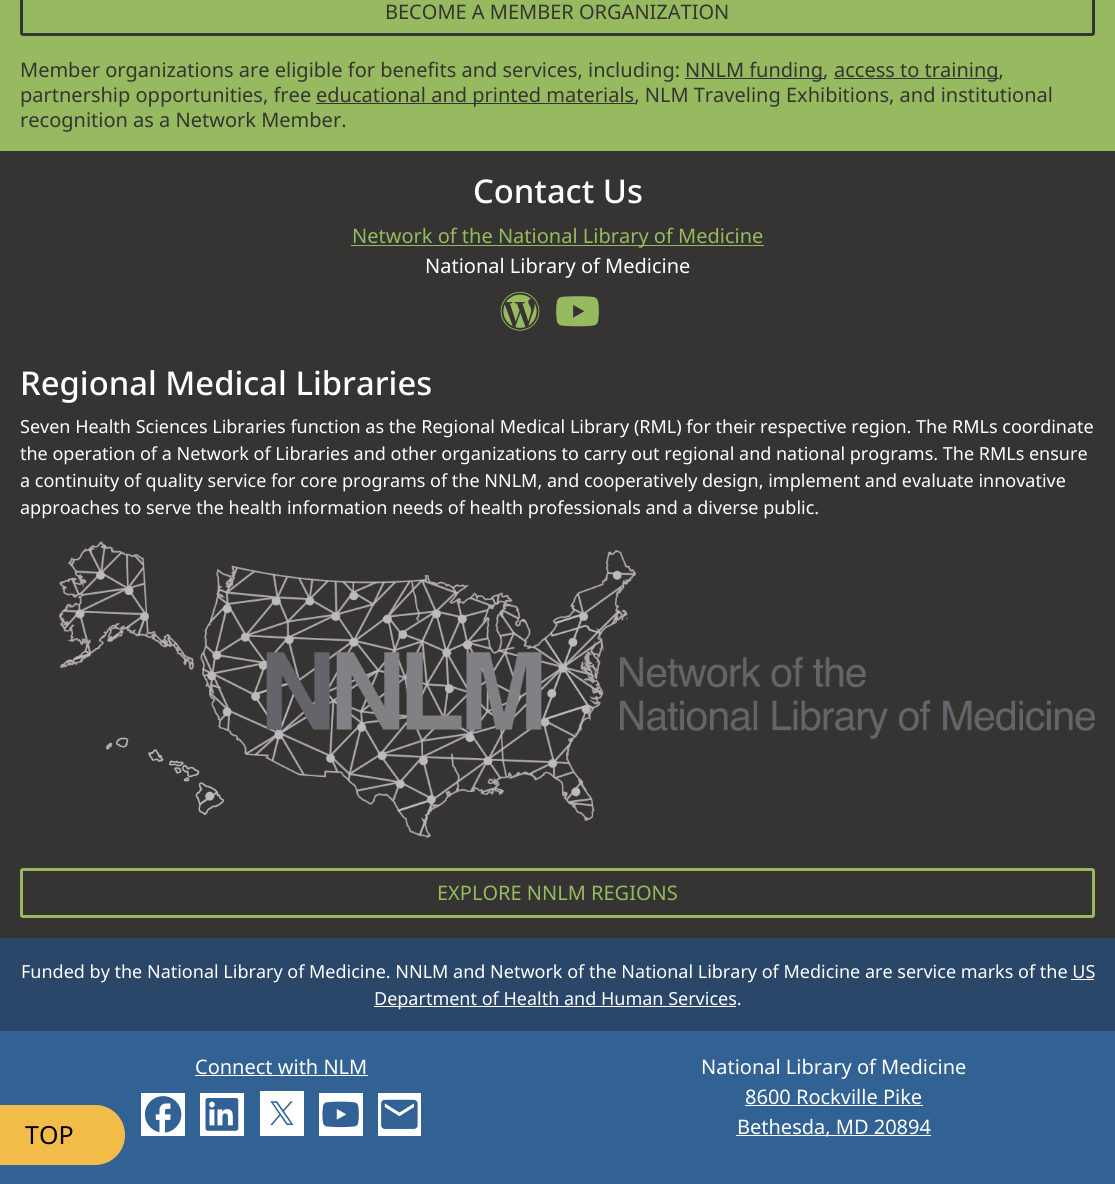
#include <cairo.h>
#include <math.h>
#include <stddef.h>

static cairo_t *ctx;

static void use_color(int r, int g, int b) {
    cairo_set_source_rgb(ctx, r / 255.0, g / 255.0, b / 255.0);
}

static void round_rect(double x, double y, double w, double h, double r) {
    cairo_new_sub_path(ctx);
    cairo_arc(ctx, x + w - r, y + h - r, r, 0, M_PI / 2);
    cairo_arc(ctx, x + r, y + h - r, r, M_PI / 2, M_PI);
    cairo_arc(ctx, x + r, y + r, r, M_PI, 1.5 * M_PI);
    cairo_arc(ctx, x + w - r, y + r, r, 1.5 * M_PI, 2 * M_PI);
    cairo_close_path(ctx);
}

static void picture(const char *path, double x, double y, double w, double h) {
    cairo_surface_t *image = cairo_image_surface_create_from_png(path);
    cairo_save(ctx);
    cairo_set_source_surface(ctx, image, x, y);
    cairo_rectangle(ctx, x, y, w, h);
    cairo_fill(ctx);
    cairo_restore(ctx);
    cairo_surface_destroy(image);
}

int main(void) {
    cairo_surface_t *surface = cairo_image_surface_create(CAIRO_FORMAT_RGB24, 1115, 1184);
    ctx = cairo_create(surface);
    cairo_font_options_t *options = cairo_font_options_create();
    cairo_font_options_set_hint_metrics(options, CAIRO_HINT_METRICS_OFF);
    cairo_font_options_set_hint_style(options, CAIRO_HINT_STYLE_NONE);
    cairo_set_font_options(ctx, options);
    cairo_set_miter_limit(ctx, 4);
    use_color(151, 185, 95);
    cairo_paint(ctx);
    round_rect(21.5, -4.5, 1072, 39, 1.5);
    use_color(53, 52, 50);
    cairo_set_line_width(ctx, 3);
    cairo_stroke(ctx);
    cairo_select_font_face(ctx, "Noto Sans", CAIRO_FONT_SLANT_NORMAL, CAIRO_FONT_WEIGHT_NORMAL);
    cairo_set_font_size(ctx, 20);
    cairo_move_to(ctx, 385, 19);
    cairo_show_text(ctx, "BECOME A MEMBER ORGANIZATION");
    cairo_move_to(ctx, 20, 77);
    cairo_show_text(ctx, "Member organizations are eligible for benefits and services, including:");
    cairo_rectangle(ctx, 685, 78, 139, 1);
    cairo_fill(ctx);
    cairo_move_to(ctx, 685, 77);
    cairo_show_text(ctx, "NNLM funding,");
    cairo_rectangle(ctx, 834, 78, 165, 1);
    cairo_fill(ctx);
    cairo_move_to(ctx, 834, 77);
    cairo_show_text(ctx, "access to training,");
    cairo_move_to(ctx, 20, 102);
    cairo_show_text(ctx, "partnership opportunities, free");
    cairo_rectangle(ctx, 316, 103, 319, 1);
    cairo_fill(ctx);
    cairo_move_to(ctx, 316, 102);
    cairo_show_text(ctx, "educational and printed materials, NLM Traveling Exhibitions, and institutional");
    cairo_move_to(ctx, 20, 127);
    cairo_show_text(ctx, "recognition as a Network Member.");
    cairo_rectangle(ctx, 0, 151, 1115, 787);
    cairo_fill(ctx);
    cairo_select_font_face(ctx, "Noto Sans Medium", CAIRO_FONT_SLANT_NORMAL, CAIRO_FONT_WEIGHT_NORMAL);
    cairo_set_font_size(ctx, 32.75);
    use_color(255, 255, 255);
    cairo_move_to(ctx, 473, 203);
    cairo_show_text(ctx, "Contact Us");
    use_color(151, 185, 95);
    cairo_rectangle(ctx, 351, 245, 413, 1);
    cairo_fill(ctx);
    cairo_select_font_face(ctx, "Noto Sans", CAIRO_FONT_SLANT_NORMAL, CAIRO_FONT_WEIGHT_NORMAL);
    cairo_set_font_size(ctx, 20);
    cairo_move_to(ctx, 352, 243);
    cairo_show_text(ctx, "Network of the National Library of Medicine");
    use_color(255, 255, 255);
    cairo_move_to(ctx, 425, 273);
    cairo_show_text(ctx, "National Library of Medicine");
    picture("img1.png", 500, 291, 40, 40);
    picture("img2.png", 556, 296, 43, 31);
    cairo_select_font_face(ctx, "Noto Sans Medium", CAIRO_FONT_SLANT_NORMAL, CAIRO_FONT_WEIGHT_NORMAL);
    cairo_set_font_size(ctx, 32.75);
    cairo_move_to(ctx, 20, 395);
    cairo_show_text(ctx, "Regional Medical Libraries");
    cairo_select_font_face(ctx, "Noto Sans", CAIRO_FONT_SLANT_NORMAL, CAIRO_FONT_WEIGHT_NORMAL);
    cairo_set_font_size(ctx, 18);
    cairo_move_to(ctx, 20, 433);
    cairo_show_text(ctx, "Seven Health Sciences Libraries function as the Regional Medical Library (RML) for their respective region. The RMLs coordinate");
    cairo_move_to(ctx, 20, 460);
    cairo_show_text(ctx, "the operation of a Network of Libraries and other organizations to carry out regional and national programs. The RMLs ensure");
    cairo_move_to(ctx, 20, 487);
    cairo_show_text(ctx, "a continuity of quality service for core programs of the NNLM, and cooperatively design, implement and evaluate innovative");
    cairo_move_to(ctx, 20, 514);
    cairo_show_text(ctx, "approaches to serve the health information needs of health professionals and a diverse public.");
    picture("img3.png", 59, 541, 1036, 297);
    round_rect(21.5, 869.5, 1072, 47, 1.5);
    use_color(151, 185, 95);
    cairo_stroke(ctx);
    cairo_set_font_size(ctx, 20);
    cairo_move_to(ctx, 437, 900);
    cairo_show_text(ctx, "EXPLORE NNLM REGIONS");
    use_color(42, 70, 104);
    cairo_rectangle(ctx, 0, 938, 1115, 93);
    cairo_fill(ctx);
    cairo_set_font_size(ctx, 18);
    use_color(255, 255, 255);
    cairo_move_to(ctx, 21, 978);
    cairo_show_text(ctx, "Funded by the National Library of Medicine. NNLM and Network of the National Library of Medicine are service marks of the US");
    cairo_rectangle(ctx, 374, 1006, 362, 1);
    cairo_fill(ctx);
    cairo_move_to(ctx, 374, 1005);
    cairo_show_text(ctx, "Department of Health and Human Services.");
    cairo_rectangle(ctx, 1071, 979, 23, 1);
    cairo_fill(ctx);
    use_color(50, 98, 148);
    cairo_rectangle(ctx, 0, 1031, 1115, 153);
    cairo_fill(ctx);
    cairo_set_font_size(ctx, 20);
    use_color(255, 255, 255);
    cairo_move_to(ctx, 195, 1074);
    cairo_show_text(ctx, "Connect with NLM");
    cairo_rectangle(ctx, 195, 1075, 173, 1);
    cairo_fill(ctx);
    cairo_rectangle(ctx, 141, 1093, 44, 43);
    cairo_fill(ctx);
    picture("img4.png", 144, 1096, 38, 37);
    cairo_rectangle(ctx, 200, 1093, 44, 43);
    cairo_fill(ctx);
    picture("img5.png", 205, 1098, 34, 33);
    cairo_rectangle(ctx, 260, 1091, 44, 45);
    cairo_fill(ctx);
    picture("img6.png", 270, 1101, 24, 24);
    cairo_rectangle(ctx, 319, 1093, 44, 43);
    cairo_fill(ctx);
    picture("img7.png", 322, 1101, 37, 27);
    cairo_rectangle(ctx, 378, 1093, 43, 43);
    cairo_fill(ctx);
    picture("img8.png", 381, 1099, 37, 30);
    cairo_move_to(ctx, 701, 1074);
    cairo_show_text(ctx, "National Library of Medicine");
    cairo_move_to(ctx, 745, 1104);
    cairo_show_text(ctx, "8600 Rockville Pike");
    cairo_rectangle(ctx, 745, 1105, 178, 1);
    cairo_fill(ctx);
    cairo_rectangle(ctx, 736, 1135, 195, 1);
    cairo_fill(ctx);
    cairo_move_to(ctx, 737, 1134);
    cairo_show_text(ctx, "Bethesda, MD 20894");
    use_color(242, 188, 73);
    cairo_new_path(ctx);
    cairo_move_to(ctx, 0.5, 1105.5);
    cairo_line_to(ctx, 95, 1105.5);
    cairo_curve_to(ctx, 111.5, 1105.5, 124.5, 1118.5, 124.5, 1135);
    cairo_curve_to(ctx, 124.5, 1151.5, 111.5, 1164.5, 95, 1164.5);
    cairo_line_to(ctx, 0.5, 1164.5);
    cairo_close_path(ctx);
    cairo_fill_preserve(ctx);
    cairo_set_line_width(ctx, 1);
    cairo_stroke(ctx);
    cairo_set_font_size(ctx, 25);
    use_color(0, 0, 0);
    cairo_move_to(ctx, 25, 1144);
    cairo_show_text(ctx, "TOP");
    cairo_surface_write_to_png(surface, "result.png");
    cairo_font_options_destroy(options);
    cairo_destroy(ctx);
    cairo_surface_destroy(surface);
    return 0;
}
